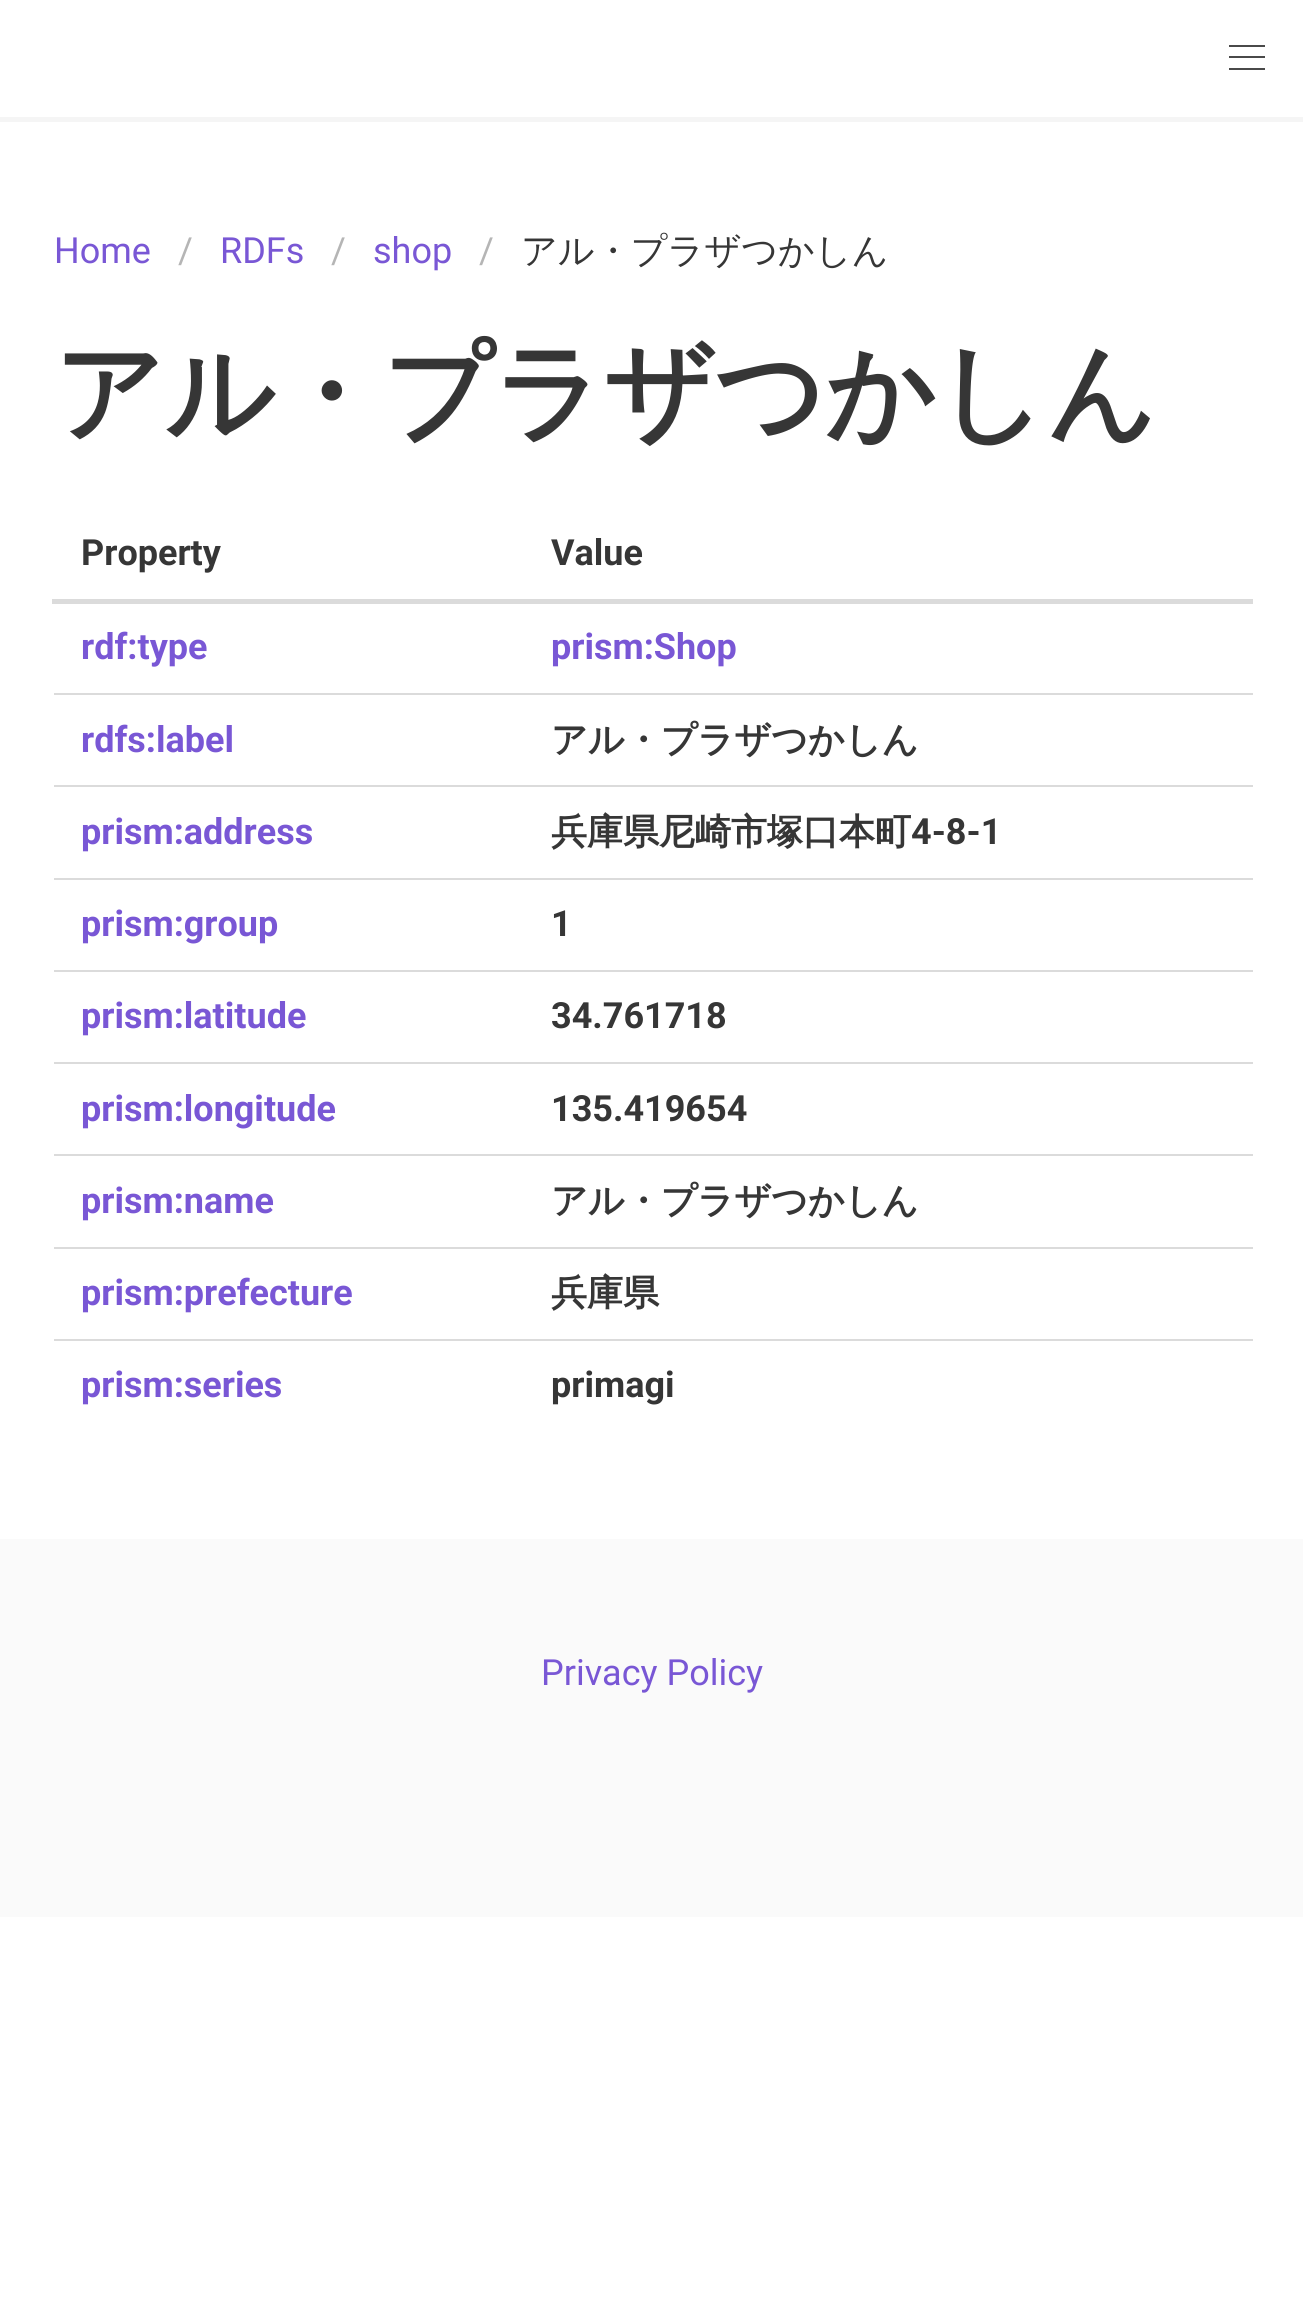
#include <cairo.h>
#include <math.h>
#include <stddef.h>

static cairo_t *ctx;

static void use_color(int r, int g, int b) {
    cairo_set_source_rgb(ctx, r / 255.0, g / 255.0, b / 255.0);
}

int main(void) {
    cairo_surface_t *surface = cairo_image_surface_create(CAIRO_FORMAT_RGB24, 1303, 2319);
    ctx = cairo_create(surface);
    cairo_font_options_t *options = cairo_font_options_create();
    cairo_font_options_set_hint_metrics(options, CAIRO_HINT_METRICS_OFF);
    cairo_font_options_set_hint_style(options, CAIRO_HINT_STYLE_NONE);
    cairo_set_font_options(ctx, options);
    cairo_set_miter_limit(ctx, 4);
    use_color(255, 255, 255);
    cairo_paint(ctx);
    use_color(245, 245, 245);
    cairo_rectangle(ctx, 0, 117, 1303, 5);
    cairo_fill(ctx);
    use_color(74, 74, 74);
    cairo_rectangle(ctx, 1229, 45, 36, 2);
    cairo_fill(ctx);
    cairo_rectangle(ctx, 1229, 56, 36, 2);
    cairo_fill(ctx);
    cairo_rectangle(ctx, 1229, 68, 36, 2);
    cairo_fill(ctx);
    cairo_select_font_face(ctx, "Roboto", CAIRO_FONT_SLANT_NORMAL, CAIRO_FONT_WEIGHT_NORMAL);
    cairo_set_font_size(ctx, 36);
    use_color(121, 87, 213);
    cairo_move_to(ctx, 54, 263);
    cairo_show_text(ctx, "Home");
    use_color(181, 181, 181);
    cairo_move_to(ctx, 178, 263);
    cairo_show_text(ctx, "/");
    use_color(121, 87, 213);
    cairo_move_to(ctx, 220, 263);
    cairo_show_text(ctx, "RDFs");
    use_color(181, 181, 181);
    cairo_move_to(ctx, 331, 263);
    cairo_show_text(ctx, "/");
    use_color(121, 87, 213);
    cairo_move_to(ctx, 373, 263);
    cairo_show_text(ctx, "shop");
    use_color(181, 181, 181);
    cairo_move_to(ctx, 479, 263);
    cairo_show_text(ctx, "/");
    cairo_select_font_face(ctx, "WenQuanYi Zen Hei Medium", CAIRO_FONT_SLANT_NORMAL, CAIRO_FONT_WEIGHT_NORMAL);
    use_color(54, 54, 54);
    cairo_move_to(ctx, 521, 263);
    cairo_show_text(ctx, "アル・プラザつかしん");
    cairo_select_font_face(ctx, "WenQuanYi Zen Hei", CAIRO_FONT_SLANT_NORMAL, CAIRO_FONT_WEIGHT_BOLD);
    cairo_set_font_size(ctx, 108);
    cairo_move_to(ctx, 54, 430);
    cairo_show_text(ctx, "アル・プラザつかしん");
    cairo_select_font_face(ctx, "Roboto", CAIRO_FONT_SLANT_NORMAL, CAIRO_FONT_WEIGHT_BOLD);
    cairo_set_font_size(ctx, 36);
    cairo_move_to(ctx, 81, 565);
    cairo_show_text(ctx, "Property");
    use_color(219, 219, 219);
    cairo_rectangle(ctx, 52, 599, 1201, 5);
    cairo_fill(ctx);
    use_color(54, 54, 54);
    cairo_move_to(ctx, 551, 565);
    cairo_show_text(ctx, "Value");
    use_color(121, 87, 213);
    cairo_move_to(ctx, 81, 659);
    cairo_show_text(ctx, "rdf:type");
    use_color(219, 219, 219);
    cairo_rectangle(ctx, 54, 693, 1199, 2);
    cairo_fill(ctx);
    use_color(121, 87, 213);
    cairo_move_to(ctx, 551, 659);
    cairo_show_text(ctx, "prism:Shop");
    cairo_move_to(ctx, 81, 752);
    cairo_show_text(ctx, "rdfs:label");
    use_color(219, 219, 219);
    cairo_rectangle(ctx, 54, 785, 1199, 2);
    cairo_fill(ctx);
    cairo_select_font_face(ctx, "WenQuanYi Zen Hei", CAIRO_FONT_SLANT_NORMAL, CAIRO_FONT_WEIGHT_BOLD);
    use_color(54, 54, 54);
    cairo_move_to(ctx, 551, 752);
    cairo_show_text(ctx, "アル・プラザつかしん");
    cairo_select_font_face(ctx, "Roboto", CAIRO_FONT_SLANT_NORMAL, CAIRO_FONT_WEIGHT_BOLD);
    use_color(121, 87, 213);
    cairo_move_to(ctx, 81, 844);
    cairo_show_text(ctx, "prism:address");
    use_color(219, 219, 219);
    cairo_rectangle(ctx, 54, 878, 1199, 2);
    cairo_fill(ctx);
    cairo_select_font_face(ctx, "WenQuanYi Zen Hei", CAIRO_FONT_SLANT_NORMAL, CAIRO_FONT_WEIGHT_BOLD);
    use_color(54, 54, 54);
    cairo_move_to(ctx, 551, 844);
    cairo_show_text(ctx, "兵庫県尼崎市塚口本町");
    cairo_select_font_face(ctx, "Roboto", CAIRO_FONT_SLANT_NORMAL, CAIRO_FONT_WEIGHT_BOLD);
    cairo_move_to(ctx, 911, 844);
    cairo_show_text(ctx, "4-8-1");
    use_color(121, 87, 213);
    cairo_move_to(ctx, 81, 936);
    cairo_show_text(ctx, "prism:group");
    use_color(219, 219, 219);
    cairo_rectangle(ctx, 54, 970, 1199, 2);
    cairo_fill(ctx);
    use_color(54, 54, 54);
    cairo_move_to(ctx, 551, 936);
    cairo_show_text(ctx, "1");
    use_color(121, 87, 213);
    cairo_move_to(ctx, 81, 1028);
    cairo_show_text(ctx, "prism:latitude");
    use_color(219, 219, 219);
    cairo_rectangle(ctx, 54, 1062, 1199, 2);
    cairo_fill(ctx);
    use_color(54, 54, 54);
    cairo_move_to(ctx, 551, 1028);
    cairo_show_text(ctx, "34.761718");
    use_color(121, 87, 213);
    cairo_move_to(ctx, 81, 1121);
    cairo_show_text(ctx, "prism:longitude");
    use_color(219, 219, 219);
    cairo_rectangle(ctx, 54, 1154, 1199, 2);
    cairo_fill(ctx);
    use_color(54, 54, 54);
    cairo_move_to(ctx, 551, 1121);
    cairo_show_text(ctx, "135.419654");
    use_color(121, 87, 213);
    cairo_move_to(ctx, 81, 1213);
    cairo_show_text(ctx, "prism:name");
    use_color(219, 219, 219);
    cairo_rectangle(ctx, 54, 1247, 1199, 2);
    cairo_fill(ctx);
    cairo_select_font_face(ctx, "WenQuanYi Zen Hei", CAIRO_FONT_SLANT_NORMAL, CAIRO_FONT_WEIGHT_BOLD);
    use_color(54, 54, 54);
    cairo_move_to(ctx, 551, 1213);
    cairo_show_text(ctx, "アル・プラザつかしん");
    cairo_select_font_face(ctx, "Roboto", CAIRO_FONT_SLANT_NORMAL, CAIRO_FONT_WEIGHT_BOLD);
    use_color(121, 87, 213);
    cairo_move_to(ctx, 81, 1305);
    cairo_show_text(ctx, "prism:prefecture");
    use_color(219, 219, 219);
    cairo_rectangle(ctx, 54, 1339, 1199, 2);
    cairo_fill(ctx);
    cairo_select_font_face(ctx, "WenQuanYi Zen Hei", CAIRO_FONT_SLANT_NORMAL, CAIRO_FONT_WEIGHT_BOLD);
    use_color(54, 54, 54);
    cairo_move_to(ctx, 551, 1305);
    cairo_show_text(ctx, "兵庫県");
    cairo_select_font_face(ctx, "Roboto", CAIRO_FONT_SLANT_NORMAL, CAIRO_FONT_WEIGHT_BOLD);
    use_color(121, 87, 213);
    cairo_move_to(ctx, 81, 1397);
    cairo_show_text(ctx, "prism:series");
    use_color(54, 54, 54);
    cairo_move_to(ctx, 551, 1397);
    cairo_show_text(ctx, "primagi");
    use_color(250, 250, 250);
    cairo_rectangle(ctx, 0, 1539, 1303, 378);
    cairo_fill(ctx);
    cairo_select_font_face(ctx, "Roboto", CAIRO_FONT_SLANT_NORMAL, CAIRO_FONT_WEIGHT_NORMAL);
    use_color(121, 87, 213);
    cairo_move_to(ctx, 541, 1685);
    cairo_show_text(ctx, "Privacy Policy");
    cairo_surface_write_to_png(surface, "result.png");
    cairo_font_options_destroy(options);
    cairo_destroy(ctx);
    cairo_surface_destroy(surface);
    return 0;
}
